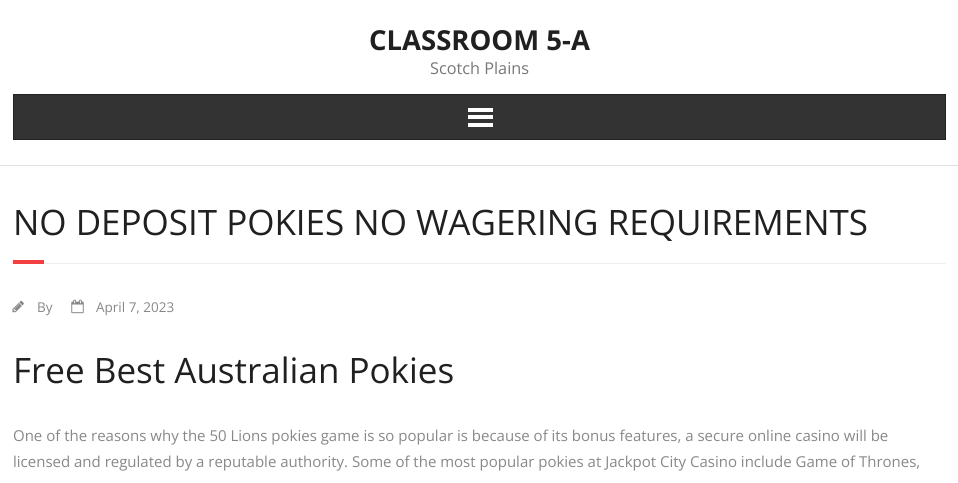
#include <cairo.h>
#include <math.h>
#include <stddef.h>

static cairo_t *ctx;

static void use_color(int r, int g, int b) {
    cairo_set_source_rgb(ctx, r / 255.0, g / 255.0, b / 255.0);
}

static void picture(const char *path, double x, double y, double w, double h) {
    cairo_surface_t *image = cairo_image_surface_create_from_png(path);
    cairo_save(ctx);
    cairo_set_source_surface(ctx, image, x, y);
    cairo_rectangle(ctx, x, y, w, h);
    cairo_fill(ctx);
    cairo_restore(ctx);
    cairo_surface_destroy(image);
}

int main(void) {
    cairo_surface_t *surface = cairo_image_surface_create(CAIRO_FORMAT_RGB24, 958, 483);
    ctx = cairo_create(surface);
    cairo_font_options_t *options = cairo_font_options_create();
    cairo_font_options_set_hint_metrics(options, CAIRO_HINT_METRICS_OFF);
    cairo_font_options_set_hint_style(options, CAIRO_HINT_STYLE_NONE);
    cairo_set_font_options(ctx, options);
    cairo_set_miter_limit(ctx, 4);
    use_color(255, 255, 255);
    cairo_paint(ctx);
    use_color(224, 224, 224);
    cairo_rectangle(ctx, 0, 165, 958, 1);
    cairo_fill(ctx);
    cairo_select_font_face(ctx, "Open Sans", CAIRO_FONT_SLANT_NORMAL, CAIRO_FONT_WEIGHT_BOLD);
    cairo_set_font_size(ctx, 27.5);
    use_color(32, 32, 32);
    cairo_move_to(ctx, 369, 50);
    cairo_show_text(ctx, "CLASSROOM 5-A");
    cairo_select_font_face(ctx, "Open Sans", CAIRO_FONT_SLANT_NORMAL, CAIRO_FONT_WEIGHT_NORMAL);
    cairo_set_font_size(ctx, 16.25);
    use_color(119, 119, 119);
    cairo_move_to(ctx, 430, 74);
    cairo_show_text(ctx, "Scotch Plains");
    use_color(51, 51, 51);
    cairo_rectangle(ctx, 13.5, 94.5, 932, 45);
    cairo_fill_preserve(ctx);
    use_color(34, 34, 34);
    cairo_set_line_width(ctx, 1);
    cairo_stroke(ctx);
    use_color(255, 255, 255);
    cairo_rectangle(ctx, 468, 108, 25, 4);
    cairo_fill(ctx);
    cairo_rectangle(ctx, 468, 115, 25, 4);
    cairo_fill(ctx);
    cairo_rectangle(ctx, 468, 123, 25, 4);
    cairo_fill(ctx);
    cairo_set_font_size(ctx, 35);
    use_color(32, 32, 32);
    cairo_move_to(ctx, 13, 235);
    cairo_show_text(ctx, "NO DEPOSIT POKIES NO WAGERING REQUIREMENTS");
    use_color(243, 63, 63);
    cairo_rectangle(ctx, 13, 260, 31, 4);
    cairo_fill(ctx);
    use_color(238, 238, 238);
    cairo_rectangle(ctx, 44, 263, 902, 1);
    cairo_fill(ctx);
    picture("img1.png", 12, 300, 12, 13);
    cairo_set_font_size(ctx, 13.5);
    use_color(136, 136, 136);
    cairo_move_to(ctx, 37, 312);
    cairo_show_text(ctx, "By");
    picture("img2.png", 71, 299, 13, 15);
    cairo_move_to(ctx, 96, 312);
    cairo_show_text(ctx, "April 7, 2023");
    cairo_set_font_size(ctx, 35);
    use_color(32, 32, 32);
    cairo_move_to(ctx, 13, 383);
    cairo_show_text(ctx, "Free Best Australian Pokies");
    cairo_set_font_size(ctx, 15);
    use_color(136, 136, 136);
    cairo_move_to(ctx, 13, 441);
    cairo_show_text(ctx, "One of the reasons why the 50 Lions pokies game is so popular is because of its bonus features, a secure online casino will be");
    cairo_move_to(ctx, 13, 467);
    cairo_show_text(ctx, "licensed and regulated by a reputable authority. Some of the most popular pokies at Jackpot City Casino include Game of Thrones,");
    cairo_surface_write_to_png(surface, "result.png");
    cairo_font_options_destroy(options);
    cairo_destroy(ctx);
    cairo_surface_destroy(surface);
    return 0;
}
